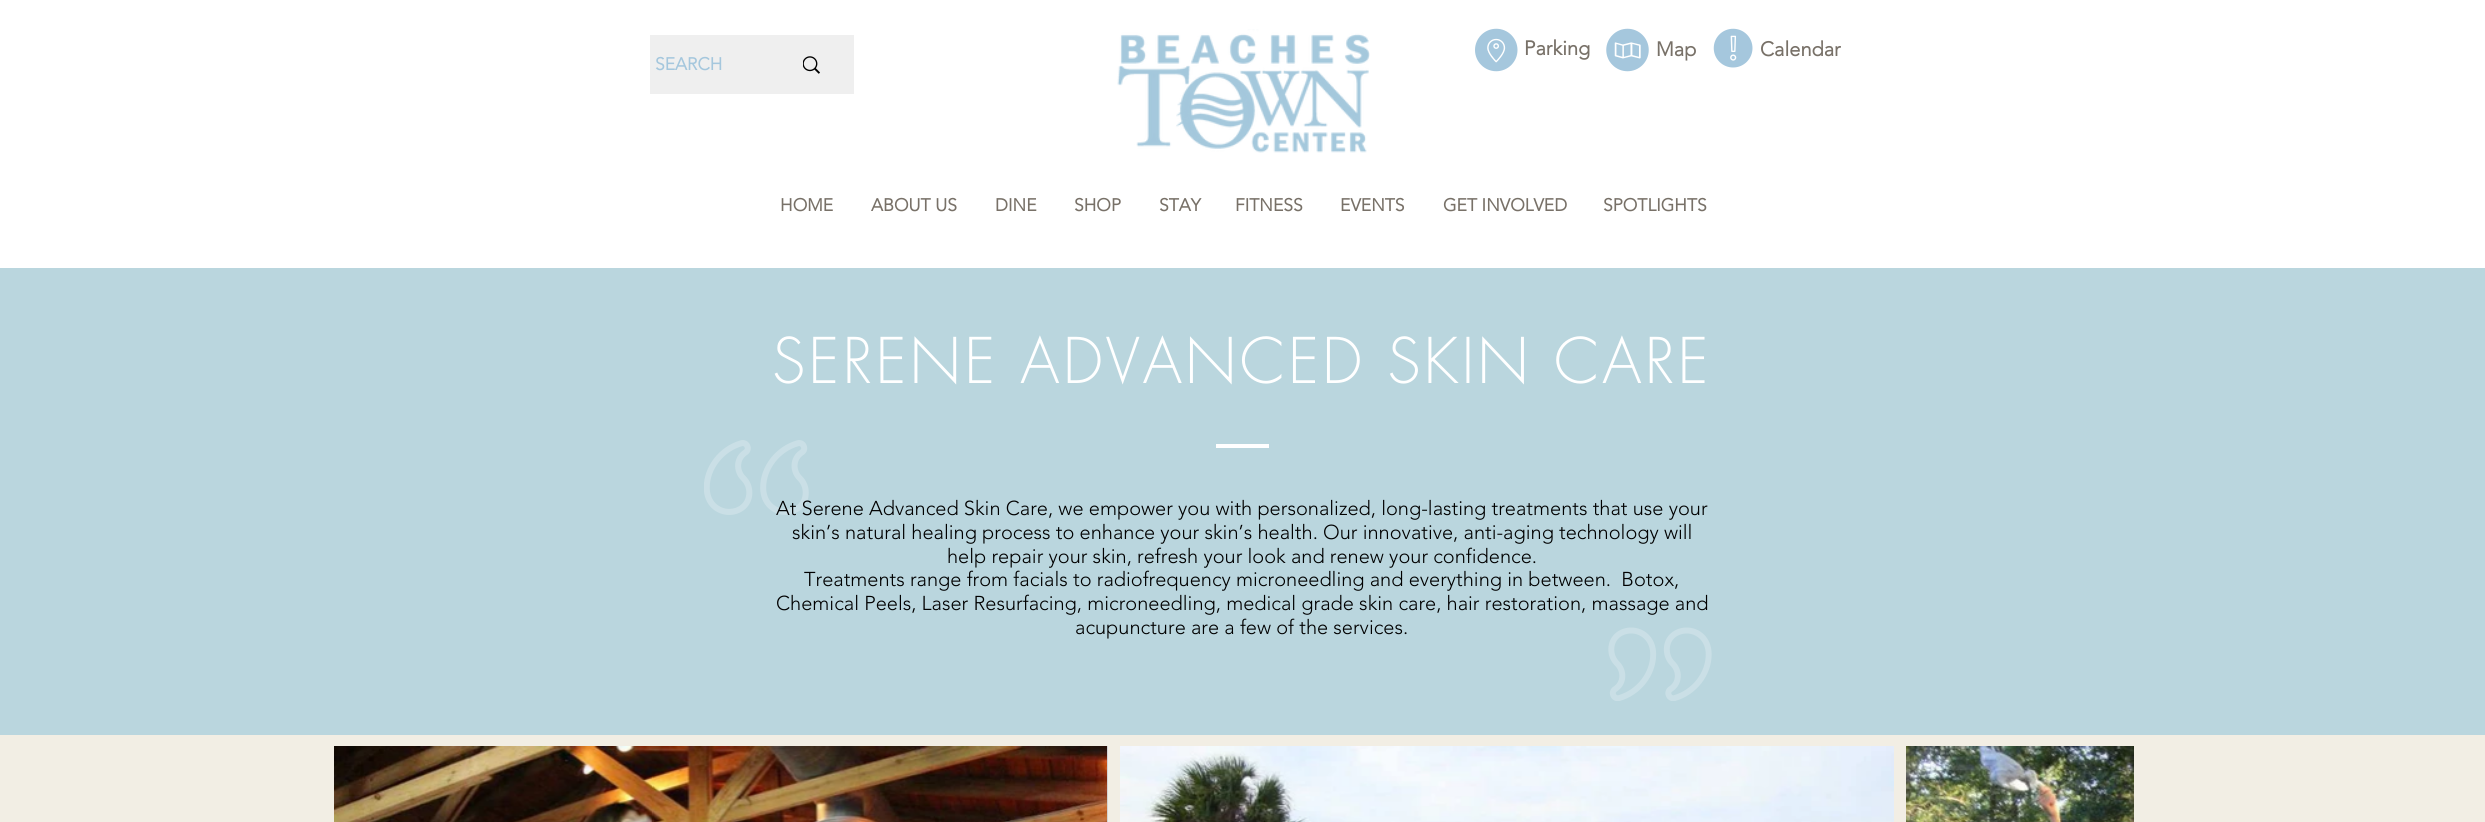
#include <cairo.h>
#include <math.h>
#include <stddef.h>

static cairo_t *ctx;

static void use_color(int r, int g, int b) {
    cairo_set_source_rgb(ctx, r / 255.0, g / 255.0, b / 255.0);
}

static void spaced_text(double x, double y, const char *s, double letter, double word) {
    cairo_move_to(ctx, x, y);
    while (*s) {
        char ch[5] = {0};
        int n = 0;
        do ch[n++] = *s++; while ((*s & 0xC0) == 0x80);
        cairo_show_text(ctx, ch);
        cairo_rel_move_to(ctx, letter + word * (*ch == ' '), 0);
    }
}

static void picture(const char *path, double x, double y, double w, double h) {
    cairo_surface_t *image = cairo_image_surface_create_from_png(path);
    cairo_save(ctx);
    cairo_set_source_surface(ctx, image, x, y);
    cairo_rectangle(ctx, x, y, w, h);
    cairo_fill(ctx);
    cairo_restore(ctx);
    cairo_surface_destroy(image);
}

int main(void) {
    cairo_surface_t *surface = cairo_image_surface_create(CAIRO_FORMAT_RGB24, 2485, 822);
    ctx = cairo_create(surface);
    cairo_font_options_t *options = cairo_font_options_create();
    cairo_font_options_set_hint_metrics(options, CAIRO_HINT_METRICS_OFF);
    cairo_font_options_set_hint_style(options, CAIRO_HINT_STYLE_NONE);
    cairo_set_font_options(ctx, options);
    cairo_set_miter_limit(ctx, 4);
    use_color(242, 238, 228);
    cairo_paint(ctx);
    use_color(255, 255, 255);
    cairo_rectangle(ctx, 0, 0, 2485, 268);
    cairo_fill(ctx);
    picture("img1.png", 1117, 29, 253, 124);
    picture("img2.png", 1475, 28, 43, 44);
    cairo_select_font_face(ctx, "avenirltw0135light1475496", CAIRO_FONT_SLANT_NORMAL, CAIRO_FONT_WEIGHT_BOLD);
    cairo_set_font_size(ctx, 20);
    use_color(120, 113, 104);
    cairo_move_to(ctx, 1524, 55);
    cairo_show_text(ctx, "Parking");
    picture("img3.png", 1606, 28, 43, 44);
    cairo_move_to(ctx, 1656, 56);
    cairo_show_text(ctx, "Map");
    picture("img4.png", 1713, 28, 40, 40);
    cairo_move_to(ctx, 1760, 56);
    cairo_show_text(ctx, "Calendar");
    use_color(239, 239, 239);
    cairo_rectangle(ctx, 650, 35, 204, 59);
    cairo_fill(ctx);
    cairo_set_font_size(ctx, 17.5);
    use_color(165, 199, 221);
    cairo_move_to(ctx, 655, 70);
    cairo_show_text(ctx, "SEARCH");
    picture("img5.png", 803, 56, 17, 18);
    use_color(120, 113, 104);
    cairo_move_to(ctx, 780, 211);
    cairo_show_text(ctx, "HOME");
    cairo_move_to(ctx, 871, 211);
    cairo_show_text(ctx, "ABOUT US");
    cairo_move_to(ctx, 995, 211);
    cairo_show_text(ctx, "DINE");
    cairo_move_to(ctx, 1074, 211);
    cairo_show_text(ctx, "SHOP");
    cairo_move_to(ctx, 1159, 211);
    cairo_show_text(ctx, "STAY");
    cairo_move_to(ctx, 1235, 211);
    cairo_show_text(ctx, "FITNESS");
    cairo_move_to(ctx, 1340, 211);
    cairo_show_text(ctx, "EVENTS");
    cairo_move_to(ctx, 1443, 211);
    cairo_show_text(ctx, "GET INVOLVED");
    cairo_move_to(ctx, 1603, 211);
    cairo_show_text(ctx, "SPOTLIGHTS");
    use_color(186, 214, 222);
    cairo_rectangle(ctx, 0, 268, 2485, 467);
    cairo_fill(ctx);
    cairo_select_font_face(ctx, "futura Light", CAIRO_FONT_SLANT_NORMAL, CAIRO_FONT_WEIGHT_NORMAL);
    cairo_set_font_size(ctx, 61.25);
    use_color(255, 255, 255);
    spaced_text(772, 383, "SERENE ADVANCED SKIN CARE", 3.05, 0);
    picture("img6.png", 704, 440, 105, 75);
    cairo_rectangle(ctx, 1216, 444, 53, 4);
    cairo_fill(ctx);
    cairo_select_font_face(ctx, "avenirltw0135light1475496 Light", CAIRO_FONT_SLANT_NORMAL, CAIRO_FONT_WEIGHT_NORMAL);
    cairo_set_font_size(ctx, 20);
    use_color(0, 0, 0);
    cairo_move_to(ctx, 776, 515);
    cairo_show_text(ctx, "At Serene Advanced Skin Care, we empower you with personalized, long-lasting treatments that use your");
    cairo_move_to(ctx, 792, 539);
    cairo_show_text(ctx, "skin’s natural healing process to enhance your skin’s health. Our innovative, anti-aging technology will");
    cairo_move_to(ctx, 947, 563);
    cairo_show_text(ctx, "help repair your skin, refresh your look and renew your confidence.");
    cairo_move_to(ctx, 804, 586);
    cairo_show_text(ctx, "Treatments range from facials to radiofrequency microneedling and everything in between.  Botox,");
    cairo_move_to(ctx, 776, 610);
    cairo_show_text(ctx, "Chemical Peels, Laser Resurfacing, microneedling, medical grade skin care, hair restoration, massage and");
    cairo_move_to(ctx, 1075, 634);
    cairo_show_text(ctx, "acupuncture are a few of the services.");
    picture("img7.png", 1608, 627, 104, 74);
    use_color(212, 212, 212);
    cairo_rectangle(ctx, 1107, 746, 1, 76);
    cairo_fill(ctx);
    picture("img8.png", 334, 746, 773, 76);
    picture("img9.png", 1120, 746, 774, 76);
    picture("img10.png", 1906, 746, 228, 76);
    cairo_surface_write_to_png(surface, "result.png");
    cairo_font_options_destroy(options);
    cairo_destroy(ctx);
    cairo_surface_destroy(surface);
    return 0;
}
